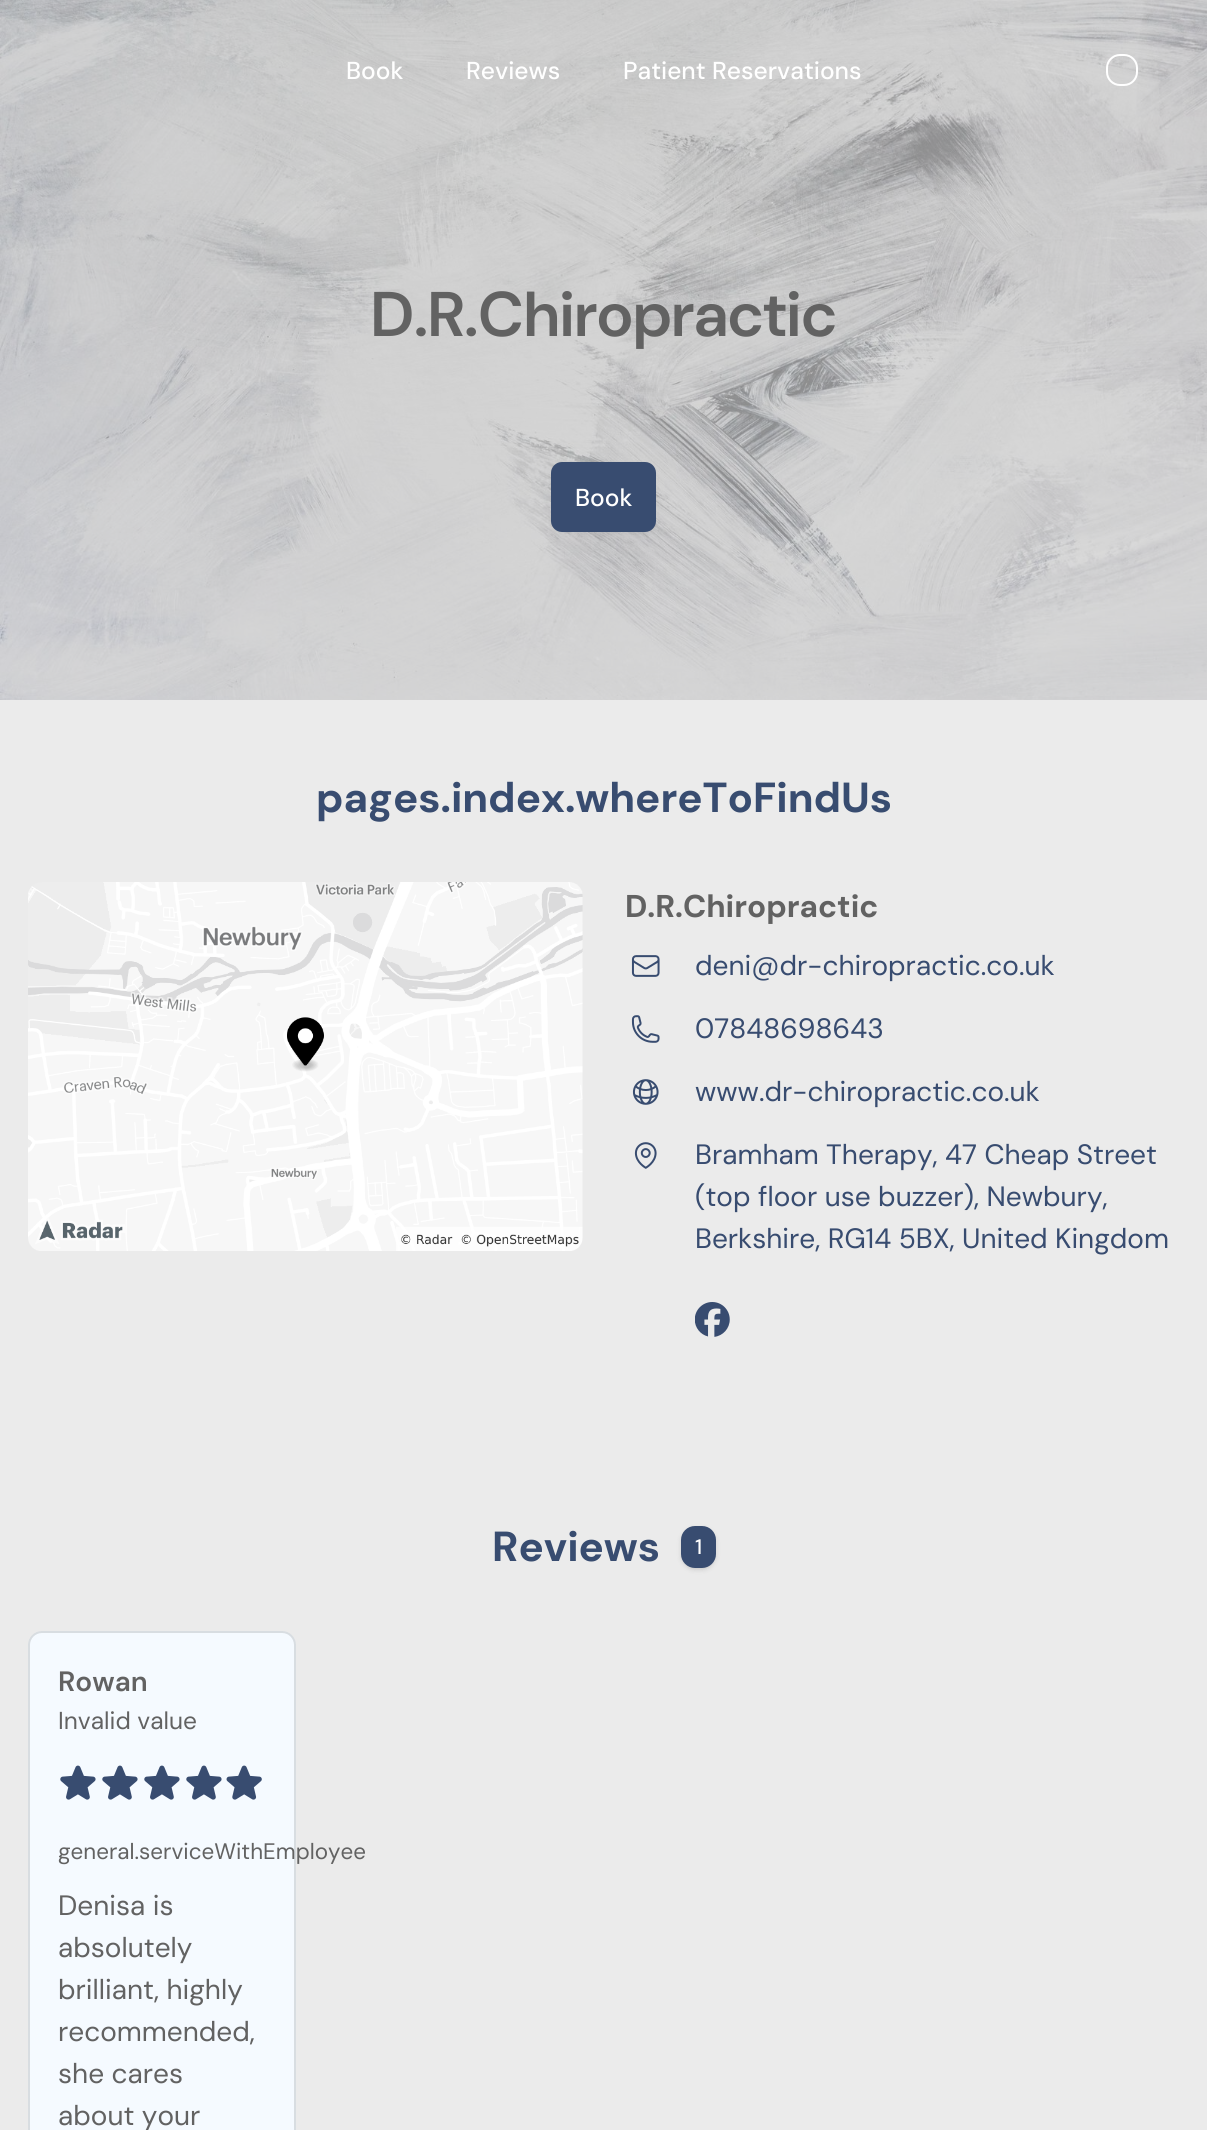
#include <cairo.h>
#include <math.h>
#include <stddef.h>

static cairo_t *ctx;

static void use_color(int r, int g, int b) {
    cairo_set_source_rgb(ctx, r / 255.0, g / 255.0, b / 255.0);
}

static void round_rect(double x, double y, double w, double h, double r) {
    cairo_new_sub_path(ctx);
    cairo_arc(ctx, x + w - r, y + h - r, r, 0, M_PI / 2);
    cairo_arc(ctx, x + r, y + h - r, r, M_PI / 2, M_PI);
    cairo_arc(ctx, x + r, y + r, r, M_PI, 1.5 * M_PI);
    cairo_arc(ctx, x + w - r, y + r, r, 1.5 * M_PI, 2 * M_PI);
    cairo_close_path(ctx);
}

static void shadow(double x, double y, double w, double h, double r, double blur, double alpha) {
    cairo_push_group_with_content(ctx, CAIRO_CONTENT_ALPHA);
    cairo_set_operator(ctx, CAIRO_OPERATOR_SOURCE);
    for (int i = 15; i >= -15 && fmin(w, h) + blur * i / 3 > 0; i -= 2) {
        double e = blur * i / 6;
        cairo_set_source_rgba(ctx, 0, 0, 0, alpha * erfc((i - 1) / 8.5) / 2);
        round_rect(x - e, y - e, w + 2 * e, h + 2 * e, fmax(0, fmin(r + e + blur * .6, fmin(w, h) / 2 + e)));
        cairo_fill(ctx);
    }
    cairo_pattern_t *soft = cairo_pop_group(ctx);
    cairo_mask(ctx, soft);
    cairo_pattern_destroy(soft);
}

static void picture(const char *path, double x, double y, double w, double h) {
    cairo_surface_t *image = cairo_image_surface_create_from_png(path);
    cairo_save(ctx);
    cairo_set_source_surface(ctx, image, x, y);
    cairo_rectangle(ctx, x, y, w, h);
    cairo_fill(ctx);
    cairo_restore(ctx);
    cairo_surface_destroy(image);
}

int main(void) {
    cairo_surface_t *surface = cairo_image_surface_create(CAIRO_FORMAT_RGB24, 1207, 2130);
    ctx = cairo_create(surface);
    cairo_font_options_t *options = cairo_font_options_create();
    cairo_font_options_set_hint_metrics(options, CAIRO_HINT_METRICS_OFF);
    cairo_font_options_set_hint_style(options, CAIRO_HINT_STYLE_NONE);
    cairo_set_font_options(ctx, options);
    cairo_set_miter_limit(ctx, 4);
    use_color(235, 235, 235);
    cairo_paint(ctx);
    picture("img1.png", 0, 0, 1207, 700);
    cairo_select_font_face(ctx, "DM Sans Medium", CAIRO_FONT_SLANT_NORMAL, CAIRO_FONT_WEIGHT_NORMAL);
    cairo_set_font_size(ctx, 24.5);
    use_color(255, 255, 255);
    cairo_move_to(ctx, 346, 79);
    cairo_show_text(ctx, "Book");
    cairo_move_to(ctx, 466, 79);
    cairo_show_text(ctx, "Reviews");
    cairo_move_to(ctx, 623, 79);
    cairo_show_text(ctx, "Patient Reservations");
    round_rect(1107, 55, 30, 30, 13);
    cairo_stroke(ctx);
    cairo_select_font_face(ctx, "DM Sans SemiBold", CAIRO_FONT_SLANT_NORMAL, CAIRO_FONT_WEIGHT_NORMAL);
    cairo_set_font_size(ctx, 63);
    use_color(98, 98, 98);
    cairo_move_to(ctx, 371, 336);
    cairo_show_text(ctx, "D.R.Chiropractic");
    use_color(0, 0, 0);
    shadow(551, 464, 105, 70, 11, 2, 0.05);
    use_color(56, 76, 112);
    round_rect(551, 462, 105, 70, 11);
    cairo_fill(ctx);
    cairo_select_font_face(ctx, "DM Sans Medium", CAIRO_FONT_SLANT_NORMAL, CAIRO_FONT_WEIGHT_NORMAL);
    cairo_set_font_size(ctx, 24.5);
    use_color(255, 255, 255);
    cairo_move_to(ctx, 575, 506);
    cairo_show_text(ctx, "Book");
    cairo_select_font_face(ctx, "DM Sans", CAIRO_FONT_SLANT_NORMAL, CAIRO_FONT_WEIGHT_BOLD);
    cairo_set_font_size(ctx, 42);
    use_color(56, 76, 112);
    cairo_move_to(ctx, 316, 812);
    cairo_show_text(ctx, "pages.index.whereToFindUs");
    picture("img2.png", 28, 882, 555, 369);
    cairo_select_font_face(ctx, "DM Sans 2", CAIRO_FONT_SLANT_NORMAL, CAIRO_FONT_WEIGHT_BOLD);
    cairo_set_font_size(ctx, 31.5);
    use_color(98, 98, 98);
    cairo_move_to(ctx, 625, 917);
    cairo_show_text(ctx, "D.R.Chiropractic");
    picture("img3.png", 631, 955, 29, 22);
    cairo_select_font_face(ctx, "DM Sans", CAIRO_FONT_SLANT_NORMAL, CAIRO_FONT_WEIGHT_NORMAL);
    cairo_set_font_size(ctx, 28);
    use_color(56, 76, 112);
    cairo_move_to(ctx, 695, 975);
    cairo_show_text(ctx, "deni@dr-chiropractic.co.uk");
    picture("img4.png", 631, 1015, 29, 28);
    cairo_move_to(ctx, 695, 1038);
    cairo_show_text(ctx, "07848698643");
    picture("img5.png", 632, 1079, 27, 26);
    cairo_move_to(ctx, 695, 1101);
    cairo_show_text(ctx, "www.dr-chiropractic.co.uk");
    picture("img6.png", 634, 1142, 23, 27);
    cairo_move_to(ctx, 695, 1164);
    cairo_show_text(ctx, "Bramham Therapy, 47 Cheap Street");
    cairo_move_to(ctx, 695, 1206);
    cairo_show_text(ctx, "(top floor use buzzer), Newbury,");
    cairo_move_to(ctx, 695, 1248);
    cairo_show_text(ctx, "Berkshire, RG14 5BX, United Kingdom");
    picture("img7.png", 695, 1302, 35, 35);
    cairo_select_font_face(ctx, "DM Sans", CAIRO_FONT_SLANT_NORMAL, CAIRO_FONT_WEIGHT_BOLD);
    cairo_set_font_size(ctx, 42);
    cairo_move_to(ctx, 492, 1561);
    cairo_show_text(ctx, "Reviews");
    use_color(0, 0, 0);
    shadow(683, 1530, 31, 38, 12, 2, 0.1);
    shadow(681, 1528, 35, 42, 14, 2.5, 0.1);
    use_color(56, 76, 112);
    round_rect(681, 1526, 35, 42, 14);
    cairo_fill(ctx);
    cairo_select_font_face(ctx, "DM Sans 2 Medium", CAIRO_FONT_SLANT_NORMAL, CAIRO_FONT_WEIGHT_NORMAL);
    cairo_set_font_size(ctx, 21);
    use_color(255, 255, 255);
    cairo_move_to(ctx, 695, 1554);
    cairo_show_text(ctx, "1");
    use_color(245, 250, 255);
    round_rect(28, 1631, 268, 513, 14);
    cairo_fill(ctx);
    round_rect(29, 1632, 266, 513, 13);
    cairo_set_source_rgba(ctx, 0, 0, 0, 0.12);
    cairo_stroke(ctx);
    cairo_select_font_face(ctx, "DM Sans 2 SemiBold", CAIRO_FONT_SLANT_NORMAL, CAIRO_FONT_WEIGHT_NORMAL);
    cairo_set_font_size(ctx, 28);
    use_color(98, 98, 98);
    cairo_move_to(ctx, 58, 1691);
    cairo_show_text(ctx, "Rowan");
    cairo_select_font_face(ctx, "DM Sans 2", CAIRO_FONT_SLANT_NORMAL, CAIRO_FONT_WEIGHT_NORMAL);
    cairo_set_font_size(ctx, 24.5);
    cairo_move_to(ctx, 58, 1729);
    cairo_show_text(ctx, "Invalid value");
    picture("img8.png", 60, 1765, 36, 35);
    picture("img8.png", 102, 1765, 36, 35);
    picture("img8.png", 144, 1765, 36, 35);
    picture("img8.png", 186, 1765, 36, 35);
    picture("img9.png", 226, 1765, 36, 35);
    cairo_select_font_face(ctx, "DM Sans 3", CAIRO_FONT_SLANT_NORMAL, CAIRO_FONT_WEIGHT_NORMAL);
    cairo_set_font_size(ctx, 22.4);
    cairo_move_to(ctx, 58, 1859);
    cairo_show_text(ctx, "general.serviceWithEmployee");
    cairo_select_font_face(ctx, "DM Sans", CAIRO_FONT_SLANT_NORMAL, CAIRO_FONT_WEIGHT_NORMAL);
    cairo_set_font_size(ctx, 28);
    cairo_move_to(ctx, 58, 1915);
    cairo_show_text(ctx, "Denisa is");
    cairo_move_to(ctx, 58, 1957);
    cairo_show_text(ctx, "absolutely");
    cairo_move_to(ctx, 58, 1999);
    cairo_show_text(ctx, "brilliant, highly");
    cairo_move_to(ctx, 58, 2041);
    cairo_show_text(ctx, "recommended,");
    cairo_move_to(ctx, 58, 2083);
    cairo_show_text(ctx, "she cares");
    cairo_move_to(ctx, 58, 2125);
    cairo_show_text(ctx, "about your");
    cairo_surface_write_to_png(surface, "result.png");
    cairo_font_options_destroy(options);
    cairo_destroy(ctx);
    cairo_surface_destroy(surface);
    return 0;
}
